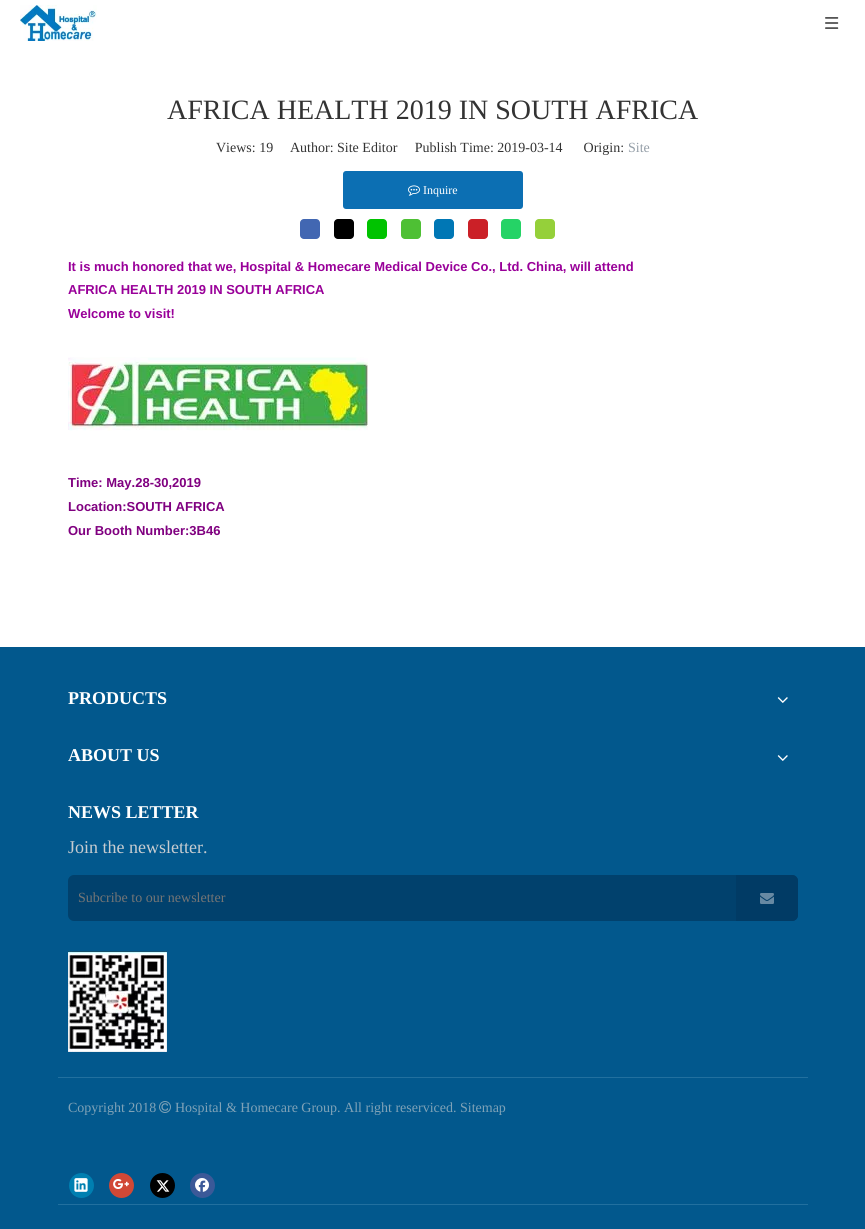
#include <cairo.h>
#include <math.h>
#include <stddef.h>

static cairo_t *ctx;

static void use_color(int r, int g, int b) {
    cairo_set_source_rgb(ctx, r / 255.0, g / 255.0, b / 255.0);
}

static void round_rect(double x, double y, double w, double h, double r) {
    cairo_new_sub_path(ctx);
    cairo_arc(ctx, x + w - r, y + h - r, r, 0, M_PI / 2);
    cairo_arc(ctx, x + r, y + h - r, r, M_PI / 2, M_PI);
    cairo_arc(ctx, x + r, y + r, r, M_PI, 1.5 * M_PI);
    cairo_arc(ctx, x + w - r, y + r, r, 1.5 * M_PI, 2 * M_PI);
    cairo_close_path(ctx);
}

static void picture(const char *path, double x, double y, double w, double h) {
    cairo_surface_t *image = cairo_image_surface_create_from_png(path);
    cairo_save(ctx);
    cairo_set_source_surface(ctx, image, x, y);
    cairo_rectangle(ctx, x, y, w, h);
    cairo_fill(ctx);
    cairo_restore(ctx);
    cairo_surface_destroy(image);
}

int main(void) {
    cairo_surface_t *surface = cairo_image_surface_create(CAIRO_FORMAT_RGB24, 865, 1229);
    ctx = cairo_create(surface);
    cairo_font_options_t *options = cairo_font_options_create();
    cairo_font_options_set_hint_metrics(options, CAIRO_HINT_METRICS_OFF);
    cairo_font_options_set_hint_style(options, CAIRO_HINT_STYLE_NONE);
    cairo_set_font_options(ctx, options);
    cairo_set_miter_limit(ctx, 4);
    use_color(255, 255, 255);
    cairo_paint(ctx);
    picture("img1.png", 20, 5, 77, 36);
    picture("img2.png", 825, 17, 14, 12);
    cairo_select_font_face(ctx, "Liberation Serif", CAIRO_FONT_SLANT_NORMAL, CAIRO_FONT_WEIGHT_NORMAL);
    cairo_set_font_size(ctx, 28);
    use_color(51, 51, 51);
    cairo_move_to(ctx, 167, 119);
    cairo_show_text(ctx, "AFRICA HEALTH 2019 IN SOUTH AFRICA");
    cairo_set_font_size(ctx, 14);
    cairo_move_to(ctx, 216, 152);
    cairo_show_text(ctx, "Views: 19");
    cairo_move_to(ctx, 290, 152);
    cairo_show_text(ctx, "Author: Site Editor     Publish Time: 2019-03-14      Origin:");
    use_color(149, 159, 168);
    cairo_move_to(ctx, 628, 152);
    cairo_show_text(ctx, "Site");
    use_color(12, 111, 179);
    round_rect(343, 171, 180, 38, 3);
    cairo_fill(ctx);
    picture("img3.png", 408, 185, 12, 11);
    cairo_set_font_size(ctx, 12);
    use_color(255, 255, 255);
    cairo_move_to(ctx, 423, 194);
    cairo_show_text(ctx, "Inquire");
    use_color(66, 103, 178);
    round_rect(300, 219, 20, 20, 4);
    cairo_fill(ctx);
    use_color(0, 0, 0);
    round_rect(334, 219, 20, 20, 4);
    cairo_fill(ctx);
    use_color(0, 195, 0);
    round_rect(367, 219, 20, 20, 4);
    cairo_fill(ctx);
    use_color(78, 192, 52);
    round_rect(401, 219, 20, 20, 4);
    cairo_fill(ctx);
    use_color(0, 119, 181);
    round_rect(434, 219, 20, 20, 4);
    cairo_fill(ctx);
    use_color(203, 32, 39);
    round_rect(468, 219, 20, 20, 4);
    cairo_fill(ctx);
    use_color(37, 211, 102);
    round_rect(501, 219, 20, 20, 4);
    cairo_fill(ctx);
    use_color(149, 208, 58);
    round_rect(535, 219, 20, 20, 4);
    cairo_fill(ctx);
    cairo_select_font_face(ctx, "Liberation Sans", CAIRO_FONT_SLANT_NORMAL, CAIRO_FONT_WEIGHT_BOLD);
    cairo_set_font_size(ctx, 13);
    use_color(153, 0, 153);
    cairo_move_to(ctx, 68, 271);
    cairo_show_text(ctx, "It is much honored that we, Hospital & Homecare Medical Device Co., Ltd. China, will attend");
    cairo_move_to(ctx, 68, 294);
    cairo_show_text(ctx, "AFRICA HEALTH 2019 IN SOUTH AFRICA");
    cairo_move_to(ctx, 68, 318);
    cairo_show_text(ctx, "Welcome to visit!");
    picture("img4.png", 68, 357, 300, 74);
    use_color(128, 0, 128);
    cairo_move_to(ctx, 68, 487);
    cairo_show_text(ctx, "Time: May.28-30,2019");
    cairo_move_to(ctx, 68, 511);
    cairo_show_text(ctx, "Location:SOUTH AFRICA");
    cairo_move_to(ctx, 68, 535);
    cairo_show_text(ctx, "Our Booth Number:3B46");
    use_color(2, 88, 141);
    cairo_rectangle(ctx, 0, 647, 865, 582);
    cairo_fill(ctx);
    cairo_select_font_face(ctx, "Liberation Serif", CAIRO_FONT_SLANT_NORMAL, CAIRO_FONT_WEIGHT_BOLD);
    cairo_set_font_size(ctx, 18);
    use_color(255, 255, 255);
    cairo_move_to(ctx, 68, 704);
    cairo_show_text(ctx, "PRODUCTS");
    picture("img5.png", 777, 697, 11, 6);
    cairo_move_to(ctx, 68, 761);
    cairo_show_text(ctx, "ABOUT US");
    picture("img5.png", 777, 755, 11, 6);
    cairo_move_to(ctx, 68, 818);
    cairo_show_text(ctx, "NEWS LETTER");
    cairo_select_font_face(ctx, "Liberation Serif", CAIRO_FONT_SLANT_NORMAL, CAIRO_FONT_WEIGHT_NORMAL);
    use_color(200, 204, 208);
    cairo_move_to(ctx, 68, 853);
    cairo_show_text(ctx, "Join the newsletter.");
    use_color(1, 65, 109);
    round_rect(68, 875, 730, 46, 6);
    cairo_fill(ctx);
    cairo_set_font_size(ctx, 14);
    use_color(117, 117, 117);
    cairo_move_to(ctx, 78, 902);
    cairo_show_text(ctx, "Subcribe to our newsletter");
    use_color(1, 59, 101);
    cairo_new_path(ctx);
    cairo_move_to(ctx, 736, 875);
    cairo_line_to(ctx, 792, 875);
    cairo_curve_to(ctx, 795.5, 875, 798, 877.5, 798, 881);
    cairo_line_to(ctx, 798, 915);
    cairo_curve_to(ctx, 798, 918.5, 795.5, 921, 792, 921);
    cairo_line_to(ctx, 736, 921);
    cairo_close_path(ctx);
    cairo_fill(ctx);
    picture("img6.png", 760, 893, 14, 11);
    picture("img7.png", 68, 951, 99, 101);
    use_color(34, 112, 159);
    cairo_rectangle(ctx, 58, 1077, 750, 1);
    cairo_fill(ctx);
    cairo_rectangle(ctx, 58, 1204, 750, 1);
    cairo_fill(ctx);
    use_color(127, 162, 183);
    cairo_move_to(ctx, 68, 1112);
    cairo_show_text(ctx, "Copyright 2018");
    picture("img8.png", 159, 1101, 12, 12);
    cairo_move_to(ctx, 175, 1112);
    cairo_show_text(ctx, "Hospital & Homecare Group. All right reserviced. Sitemap");
    use_color(0, 127, 177);
    cairo_new_path(ctx);
    cairo_arc(ctx, 81.5, 1185.5, 12.5, 0, 2 * M_PI);
    cairo_fill(ctx);
    picture("img9.png", 74, 1178, 14, 14);
    use_color(209, 72, 54);
    cairo_arc(ctx, 121.5, 1185.5, 12.5, 0, 2 * M_PI);
    cairo_fill(ctx);
    picture("img10.png", 113, 1179, 16, 10);
    use_color(0, 0, 0);
    cairo_arc(ctx, 162.5, 1185.5, 12.5, 0, 2 * M_PI);
    cairo_fill(ctx);
    picture("img11.png", 156, 1180, 14, 12);
    use_color(59, 89, 152);
    cairo_arc(ctx, 202.5, 1185.5, 12.5, 0, 2 * M_PI);
    cairo_fill(ctx);
    picture("img12.png", 195, 1178, 14, 14);
    cairo_surface_write_to_png(surface, "result.png");
    cairo_font_options_destroy(options);
    cairo_destroy(ctx);
    cairo_surface_destroy(surface);
    return 0;
}
